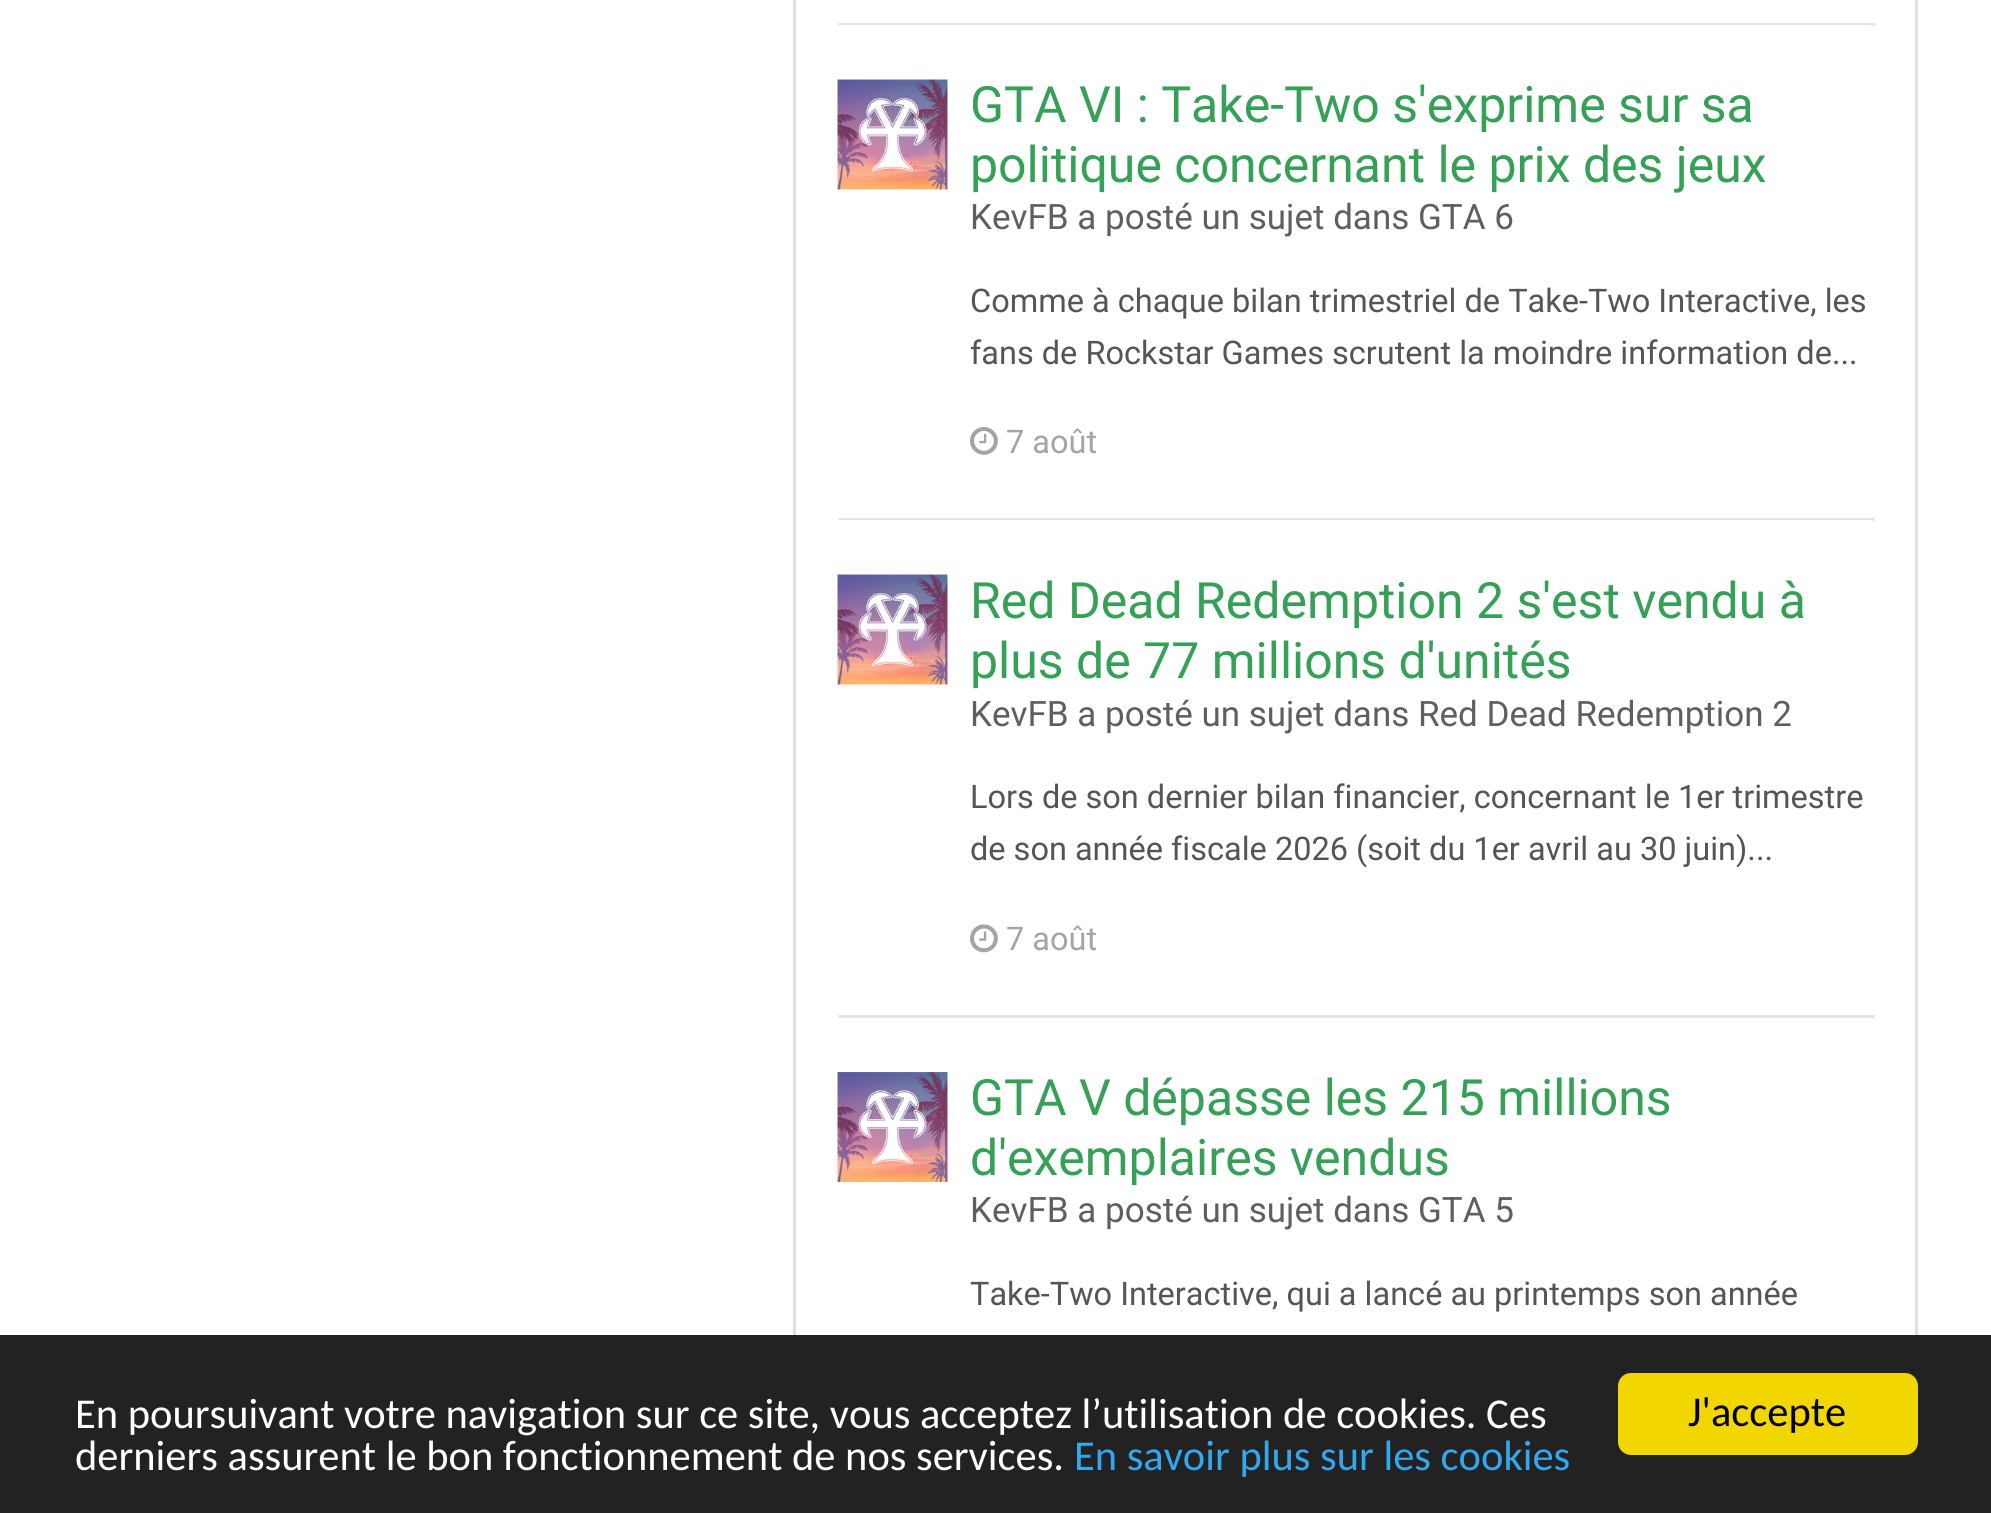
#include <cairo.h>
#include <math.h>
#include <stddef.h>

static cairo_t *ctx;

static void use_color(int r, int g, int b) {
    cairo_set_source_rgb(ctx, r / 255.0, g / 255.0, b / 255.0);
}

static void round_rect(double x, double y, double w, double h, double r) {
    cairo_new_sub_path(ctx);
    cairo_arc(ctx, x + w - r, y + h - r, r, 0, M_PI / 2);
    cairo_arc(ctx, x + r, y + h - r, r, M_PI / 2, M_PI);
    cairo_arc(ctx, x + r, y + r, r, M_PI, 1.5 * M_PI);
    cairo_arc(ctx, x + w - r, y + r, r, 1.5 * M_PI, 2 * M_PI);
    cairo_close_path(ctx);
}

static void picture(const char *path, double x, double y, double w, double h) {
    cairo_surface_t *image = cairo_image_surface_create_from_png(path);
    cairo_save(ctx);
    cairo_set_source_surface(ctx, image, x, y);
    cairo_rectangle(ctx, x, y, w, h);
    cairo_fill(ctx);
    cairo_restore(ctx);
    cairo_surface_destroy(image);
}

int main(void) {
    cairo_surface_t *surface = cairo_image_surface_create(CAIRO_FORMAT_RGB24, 1991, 1513);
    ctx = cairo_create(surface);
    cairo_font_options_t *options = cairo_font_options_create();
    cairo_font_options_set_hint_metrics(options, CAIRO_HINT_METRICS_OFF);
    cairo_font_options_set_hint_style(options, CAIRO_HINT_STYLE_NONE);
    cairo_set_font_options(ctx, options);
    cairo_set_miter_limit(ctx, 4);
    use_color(255, 255, 255);
    cairo_paint(ctx);
    cairo_rectangle(ctx, 794.5, -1.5, 1122, 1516);
    use_color(224, 224, 224);
    cairo_set_line_width(ctx, 3);
    cairo_stroke(ctx);
    use_color(230, 230, 230);
    cairo_rectangle(ctx, 838, 23, 1037, 3);
    cairo_fill(ctx);
    use_color(255, 255, 255);
    round_rect(833, 25, 1045, 495, 8);
    cairo_fill(ctx);
    use_color(230, 230, 230);
    cairo_rectangle(ctx, 838, 518, 1037, 3);
    cairo_fill(ctx);
    picture("img1.png", 837, 79, 111, 111);
    cairo_select_font_face(ctx, "Roboto", CAIRO_FONT_SLANT_NORMAL, CAIRO_FONT_WEIGHT_NORMAL);
    cairo_set_font_size(ctx, 50);
    use_color(53, 161, 86);
    cairo_move_to(ctx, 970, 122);
    cairo_show_text(ctx, "GTA VI : Take-Two s'exprime sur sa");
    cairo_move_to(ctx, 970, 182);
    cairo_show_text(ctx, "politique concernant le prix des jeux");
    cairo_set_font_size(ctx, 35);
    use_color(95, 95, 95);
    cairo_move_to(ctx, 970, 229);
    cairo_show_text(ctx, "KevFB a posté un sujet dans GTA 6");
    cairo_set_font_size(ctx, 32.5);
    use_color(85, 85, 85);
    cairo_move_to(ctx, 970, 312);
    cairo_show_text(ctx, "Comme à chaque bilan trimestriel de Take-Two Interactive, les");
    cairo_move_to(ctx, 970, 364);
    cairo_show_text(ctx, "fans de Rockstar Games scrutent la moindre information de...");
    picture("img2.png", 970, 427, 28, 28);
    use_color(164, 164, 164);
    cairo_move_to(ctx, 1006, 453);
    cairo_show_text(ctx, "7 août");
    use_color(255, 255, 255);
    round_rect(833, 520, 1045, 498, 8);
    cairo_fill(ctx);
    use_color(230, 230, 230);
    cairo_rectangle(ctx, 838, 1015, 1037, 3);
    cairo_fill(ctx);
    picture("img1.png", 837, 574, 111, 111);
    cairo_set_font_size(ctx, 50);
    use_color(53, 161, 86);
    cairo_move_to(ctx, 970, 618);
    cairo_show_text(ctx, "Red Dead Redemption 2 s'est vendu à");
    cairo_move_to(ctx, 970, 678);
    cairo_show_text(ctx, "plus de 77 millions d'unités");
    cairo_set_font_size(ctx, 35);
    use_color(95, 95, 95);
    cairo_move_to(ctx, 970, 726);
    cairo_show_text(ctx, "KevFB a posté un sujet dans Red Dead Redemption 2");
    cairo_set_font_size(ctx, 32.5);
    use_color(85, 85, 85);
    cairo_move_to(ctx, 970, 808);
    cairo_show_text(ctx, "Lors de son dernier bilan financier, concernant le 1er trimestre");
    cairo_move_to(ctx, 970, 860);
    cairo_show_text(ctx, "de son année fiscale 2026 (soit du 1er avril au 30 juin)...");
    picture("img3.png", 970, 924, 28, 29);
    use_color(164, 164, 164);
    cairo_move_to(ctx, 1006, 950);
    cairo_show_text(ctx, "7 août");
    picture("img4.png", 837, 1072, 111, 110);
    cairo_set_font_size(ctx, 50);
    use_color(53, 161, 86);
    cairo_move_to(ctx, 970, 1115);
    cairo_show_text(ctx, "GTA V dépasse les 215 millions");
    cairo_move_to(ctx, 970, 1175);
    cairo_show_text(ctx, "d'exemplaires vendus");
    cairo_set_font_size(ctx, 35);
    use_color(95, 95, 95);
    cairo_move_to(ctx, 970, 1222);
    cairo_show_text(ctx, "KevFB a posté un sujet dans GTA 5");
    cairo_set_font_size(ctx, 32.5);
    use_color(85, 85, 85);
    cairo_move_to(ctx, 970, 1305);
    cairo_show_text(ctx, "Take-Two Interactive, qui a lancé au printemps son année");
    use_color(34, 34, 34);
    cairo_rectangle(ctx, 0, 1335, 1991, 178);
    cairo_fill(ctx);
    cairo_select_font_face(ctx, "Carlito", CAIRO_FONT_SLANT_NORMAL, CAIRO_FONT_WEIGHT_NORMAL);
    cairo_set_font_size(ctx, 42.5);
    use_color(255, 255, 255);
    cairo_move_to(ctx, 75, 1428);
    cairo_show_text(ctx, "En poursuivant votre navigation sur ce site, vous acceptez l’utilisation de cookies. Ces");
    cairo_move_to(ctx, 75, 1470);
    cairo_show_text(ctx, "derniers assurent le bon fonctionnement de nos services.");
    use_color(49, 168, 240);
    cairo_move_to(ctx, 1074, 1470);
    cairo_show_text(ctx, "En savoir plus sur les cookies");
    use_color(241, 214, 0);
    round_rect(1618, 1373, 300, 82, 13);
    cairo_fill(ctx);
    use_color(0, 0, 0);
    cairo_move_to(ctx, 1688, 1426);
    cairo_show_text(ctx, "J'accepte");
    cairo_surface_write_to_png(surface, "result.png");
    cairo_font_options_destroy(options);
    cairo_destroy(ctx);
    cairo_surface_destroy(surface);
    return 0;
}
